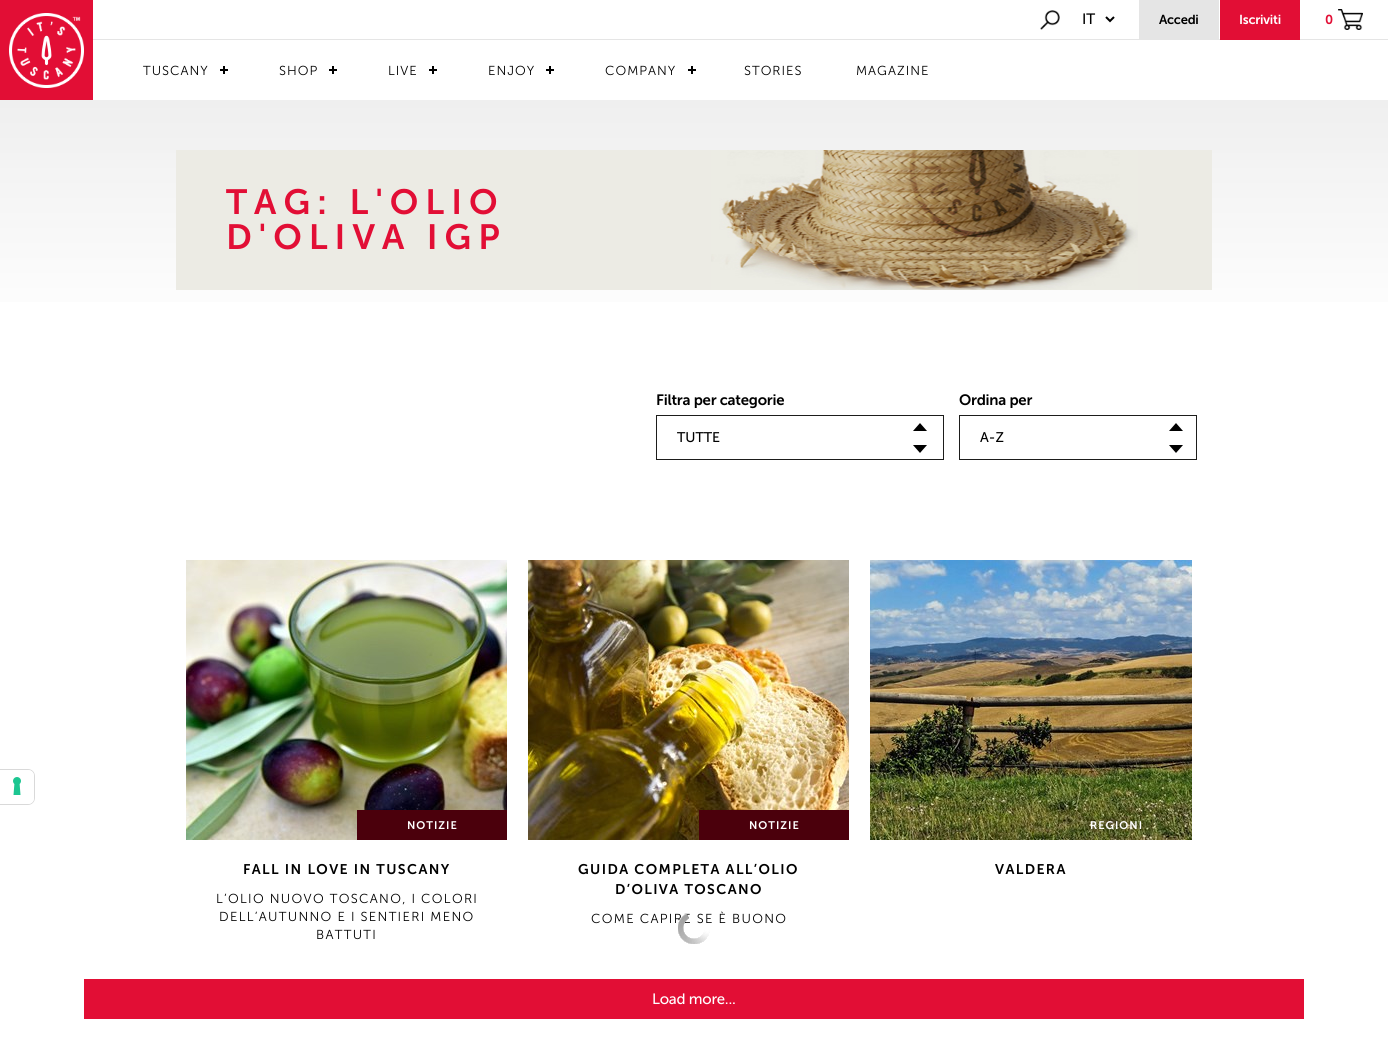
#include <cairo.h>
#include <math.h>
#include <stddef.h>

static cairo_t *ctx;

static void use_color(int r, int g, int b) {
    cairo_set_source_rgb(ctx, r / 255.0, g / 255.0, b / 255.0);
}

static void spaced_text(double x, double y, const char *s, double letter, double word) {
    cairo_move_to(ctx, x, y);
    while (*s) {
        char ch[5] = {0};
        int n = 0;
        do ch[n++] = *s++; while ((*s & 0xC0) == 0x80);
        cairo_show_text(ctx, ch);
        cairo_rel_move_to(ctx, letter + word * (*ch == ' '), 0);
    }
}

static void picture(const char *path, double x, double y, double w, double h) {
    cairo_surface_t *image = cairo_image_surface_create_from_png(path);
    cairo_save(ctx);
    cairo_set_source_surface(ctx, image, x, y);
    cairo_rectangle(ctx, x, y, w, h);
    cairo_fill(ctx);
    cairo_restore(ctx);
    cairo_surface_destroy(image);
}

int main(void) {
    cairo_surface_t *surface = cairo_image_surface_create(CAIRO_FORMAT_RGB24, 1388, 1049);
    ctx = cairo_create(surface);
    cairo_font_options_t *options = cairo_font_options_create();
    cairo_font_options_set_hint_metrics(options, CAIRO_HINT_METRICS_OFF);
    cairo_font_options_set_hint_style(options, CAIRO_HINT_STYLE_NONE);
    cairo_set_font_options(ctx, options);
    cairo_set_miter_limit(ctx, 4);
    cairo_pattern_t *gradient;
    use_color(255, 255, 255);
    cairo_paint(ctx);
    use_color(226, 14, 53);
    cairo_rectangle(ctx, 0, 0, 93, 100);
    cairo_fill(ctx);
    picture("img1.png", 9, 13, 75, 75);
    use_color(229, 229, 229);
    cairo_rectangle(ctx, 93, 39, 1295, 1);
    cairo_fill(ctx);
    picture("img2.png", 1040, 10, 20, 20);
    cairo_new_path(ctx);
    cairo_move_to(ctx, 1106, 17);
    cairo_line_to(ctx, 1110, 21);
    cairo_line_to(ctx, 1114, 17);
    use_color(0, 0, 0);
    cairo_stroke(ctx);
    cairo_select_font_face(ctx, "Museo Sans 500", CAIRO_FONT_SLANT_NORMAL, CAIRO_FONT_WEIGHT_NORMAL);
    cairo_set_font_size(ctx, 15);
    cairo_move_to(ctx, 1082, 24);
    cairo_show_text(ctx, "IT");
    use_color(229, 229, 229);
    cairo_rectangle(ctx, 1139, 0, 80, 39);
    cairo_fill(ctx);
    cairo_select_font_face(ctx, "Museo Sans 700 SemiBold", CAIRO_FONT_SLANT_NORMAL, CAIRO_FONT_WEIGHT_NORMAL);
    cairo_set_font_size(ctx, 13);
    use_color(0, 0, 0);
    spaced_text(1159, 24, "Accedi", -0.25, 0);
    use_color(226, 14, 53);
    cairo_rectangle(ctx, 1220, 0, 80, 40);
    cairo_fill(ctx);
    use_color(255, 255, 255);
    spaced_text(1239, 24, "Iscriviti", -0.25, 0);
    use_color(226, 14, 53);
    spaced_text(1325, 24, "0", -0.25, 0);
    picture("img3.png", 1338, 9, 25, 21);
    cairo_select_font_face(ctx, "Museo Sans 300 Light", CAIRO_FONT_SLANT_NORMAL, CAIRO_FONT_WEIGHT_NORMAL);
    use_color(0, 0, 0);
    spaced_text(143, 75, "TUSCANY", 1, 0);
    cairo_rectangle(ctx, 223, 66, 2, 8);
    cairo_fill(ctx);
    cairo_rectangle(ctx, 220, 69, 8, 2);
    cairo_fill(ctx);
    spaced_text(279, 75, "SHOP", 1, 0);
    cairo_rectangle(ctx, 332, 66, 2, 8);
    cairo_fill(ctx);
    cairo_rectangle(ctx, 329, 69, 8, 2);
    cairo_fill(ctx);
    spaced_text(388, 75, "LIVE", 1, 0);
    cairo_rectangle(ctx, 432, 66, 2, 8);
    cairo_fill(ctx);
    cairo_rectangle(ctx, 429, 69, 8, 2);
    cairo_fill(ctx);
    spaced_text(488, 75, "ENJOY", 1, 0);
    cairo_rectangle(ctx, 549, 66, 2, 8);
    cairo_fill(ctx);
    cairo_rectangle(ctx, 546, 69, 8, 2);
    cairo_fill(ctx);
    spaced_text(605, 75, "COMPANY", 1, 0);
    cairo_rectangle(ctx, 691, 66, 2, 8);
    cairo_fill(ctx);
    cairo_rectangle(ctx, 688, 69, 8, 2);
    cairo_fill(ctx);
    spaced_text(744, 75, "STORIES", 1, 0);
    spaced_text(856, 75, "MAGAZINE", 1, 0);
    gradient = cairo_pattern_create_linear(694, 100, 694, 340);
    cairo_pattern_add_color_stop_rgba(gradient, 0, 0.937, 0.937, 0.937, 1);
    cairo_pattern_add_color_stop_rgba(gradient, 1, 1, 1, 1, 1);
    cairo_set_source(ctx, gradient);
    cairo_pattern_destroy(gradient);
    cairo_rectangle(ctx, 0, 100, 1388, 202);
    cairo_fill(ctx);
    use_color(236, 235, 228);
    cairo_rectangle(ctx, 176, 150, 1036, 140);
    cairo_fill(ctx);
    picture("img4.png", 711, 150, 427, 140);
    cairo_select_font_face(ctx, "Museo Sans 700 SemiBold", CAIRO_FONT_SLANT_NORMAL, CAIRO_FONT_WEIGHT_NORMAL);
    cairo_set_font_size(ctx, 35);
    use_color(226, 14, 53);
    spaced_text(226, 214, "TAG: L'OLIO", 7, 0);
    spaced_text(226, 249, "D'OLIVA IGP", 7, 0);
    cairo_new_path(ctx);
    cairo_move_to(ctx, -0.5, 769.5);
    cairo_line_to(ctx, 28, 769.5);
    cairo_curve_to(ctx, 31.5, 769.5, 34.5, 772.5, 34.5, 776);
    cairo_line_to(ctx, 34.5, 798);
    cairo_curve_to(ctx, 34.5, 801.5, 31.5, 804.5, 28, 804.5);
    cairo_line_to(ctx, -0.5, 804.5);
    cairo_close_path(ctx);
    use_color(217, 217, 217);
    cairo_set_line_width(ctx, 1);
    cairo_stroke(ctx);
    use_color(255, 255, 255);
    cairo_new_path(ctx);
    cairo_move_to(ctx, 0, 770);
    cairo_line_to(ctx, 28, 770);
    cairo_curve_to(ctx, 31.5, 770, 34, 772.5, 34, 776);
    cairo_line_to(ctx, 34, 798);
    cairo_curve_to(ctx, 34, 801.5, 31.5, 804, 28, 804);
    cairo_line_to(ctx, 0, 804);
    cairo_close_path(ctx);
    cairo_fill(ctx);
    picture("img5.png", 13, 777, 8, 18);
    cairo_set_font_size(ctx, 15);
    use_color(0, 0, 0);
    spaced_text(656, 405, "Filtra per categorie", -0.25, 0);
    picture("img6.png", 913, 423, 14, 30);
    cairo_rectangle(ctx, 656.5, 415.5, 287, 44);
    use_color(29, 29, 27);
    cairo_stroke(ctx);
    cairo_select_font_face(ctx, "Museo Sans 500", CAIRO_FONT_SLANT_NORMAL, CAIRO_FONT_WEIGHT_NORMAL);
    cairo_set_font_size(ctx, 14);
    use_color(0, 0, 0);
    cairo_move_to(ctx, 677, 442);
    cairo_show_text(ctx, "TUTTE");
    cairo_select_font_face(ctx, "Museo Sans 700 SemiBold", CAIRO_FONT_SLANT_NORMAL, CAIRO_FONT_WEIGHT_NORMAL);
    cairo_set_font_size(ctx, 15);
    spaced_text(959, 405, "Ordina per", -0.25, 0);
    picture("img6.png", 1169, 423, 14, 30);
    cairo_rectangle(ctx, 959.5, 415.5, 237, 44);
    use_color(29, 29, 27);
    cairo_stroke(ctx);
    cairo_select_font_face(ctx, "Museo Sans 500", CAIRO_FONT_SLANT_NORMAL, CAIRO_FONT_WEIGHT_NORMAL);
    cairo_set_font_size(ctx, 14);
    use_color(0, 0, 0);
    cairo_move_to(ctx, 980, 442);
    cairo_show_text(ctx, "A-Z");
    picture("img7.png", 186, 560, 321, 280);
    use_color(75, 0, 12);
    cairo_rectangle(ctx, 357, 810, 150, 30);
    cairo_fill(ctx);
    cairo_select_font_face(ctx, "Museo Sans 700 SemiBold", CAIRO_FONT_SLANT_NORMAL, CAIRO_FONT_WEIGHT_NORMAL);
    cairo_set_font_size(ctx, 11);
    use_color(255, 255, 255);
    spaced_text(407, 829, "NOTIZIE", 1, 0);
    cairo_set_font_size(ctx, 14);
    use_color(0, 0, 0);
    spaced_text(243, 874, "FALL IN LOVE IN TUSCANY", 1.4, 0);
    cairo_select_font_face(ctx, "Museo Sans 300 Light", CAIRO_FONT_SLANT_NORMAL, CAIRO_FONT_WEIGHT_NORMAL);
    cairo_set_font_size(ctx, 13);
    spaced_text(216, 903, "L’OLIO NUOVO TOSCANO, I COLORI", 1.3, 0);
    spaced_text(219, 921, "DELL’AUTUNNO E I SENTIERI MENO", 1.3, 0);
    spaced_text(316, 939, "BATTUTI", 1.3, 0);
    picture("img8.png", 528, 560, 321, 280);
    use_color(75, 0, 12);
    cairo_rectangle(ctx, 699, 810, 150, 30);
    cairo_fill(ctx);
    cairo_select_font_face(ctx, "Museo Sans 700 SemiBold", CAIRO_FONT_SLANT_NORMAL, CAIRO_FONT_WEIGHT_NORMAL);
    cairo_set_font_size(ctx, 11);
    use_color(255, 255, 255);
    spaced_text(749, 829, "NOTIZIE", 1, 0);
    cairo_set_font_size(ctx, 14);
    use_color(0, 0, 0);
    spaced_text(578, 874, "GUIDA COMPLETA ALL’OLIO", 1.4, 0);
    spaced_text(615, 894, "D’OLIVA TOSCANO", 1.4, 0);
    cairo_select_font_face(ctx, "Museo Sans 300 Light", CAIRO_FONT_SLANT_NORMAL, CAIRO_FONT_WEIGHT_NORMAL);
    cairo_set_font_size(ctx, 13);
    spaced_text(591, 923, "COME CAPIRE SE È BUONO", 1.3, 0);
    picture("img9.png", 870, 560, 322, 280);
    cairo_select_font_face(ctx, "Museo Sans 700 SemiBold", CAIRO_FONT_SLANT_NORMAL, CAIRO_FONT_WEIGHT_NORMAL);
    cairo_set_font_size(ctx, 11);
    use_color(255, 255, 255);
    spaced_text(1090, 829, "REGIONI", 1, 0);
    cairo_set_font_size(ctx, 14);
    use_color(0, 0, 0);
    spaced_text(995, 874, "VALDERA", 1.4, 0);
    picture("img10.png", 678, 913, 32, 31);
    use_color(226, 14, 53);
    cairo_rectangle(ctx, 84, 979, 1220, 40);
    cairo_fill(ctx);
    cairo_select_font_face(ctx, "Museo Sans 500", CAIRO_FONT_SLANT_NORMAL, CAIRO_FONT_WEIGHT_NORMAL);
    cairo_set_font_size(ctx, 15);
    use_color(255, 255, 255);
    spaced_text(652, 1004, "Load more...", -0.25, 0);
    cairo_surface_write_to_png(surface, "result.png");
    cairo_font_options_destroy(options);
    cairo_destroy(ctx);
    cairo_surface_destroy(surface);
    return 0;
}
